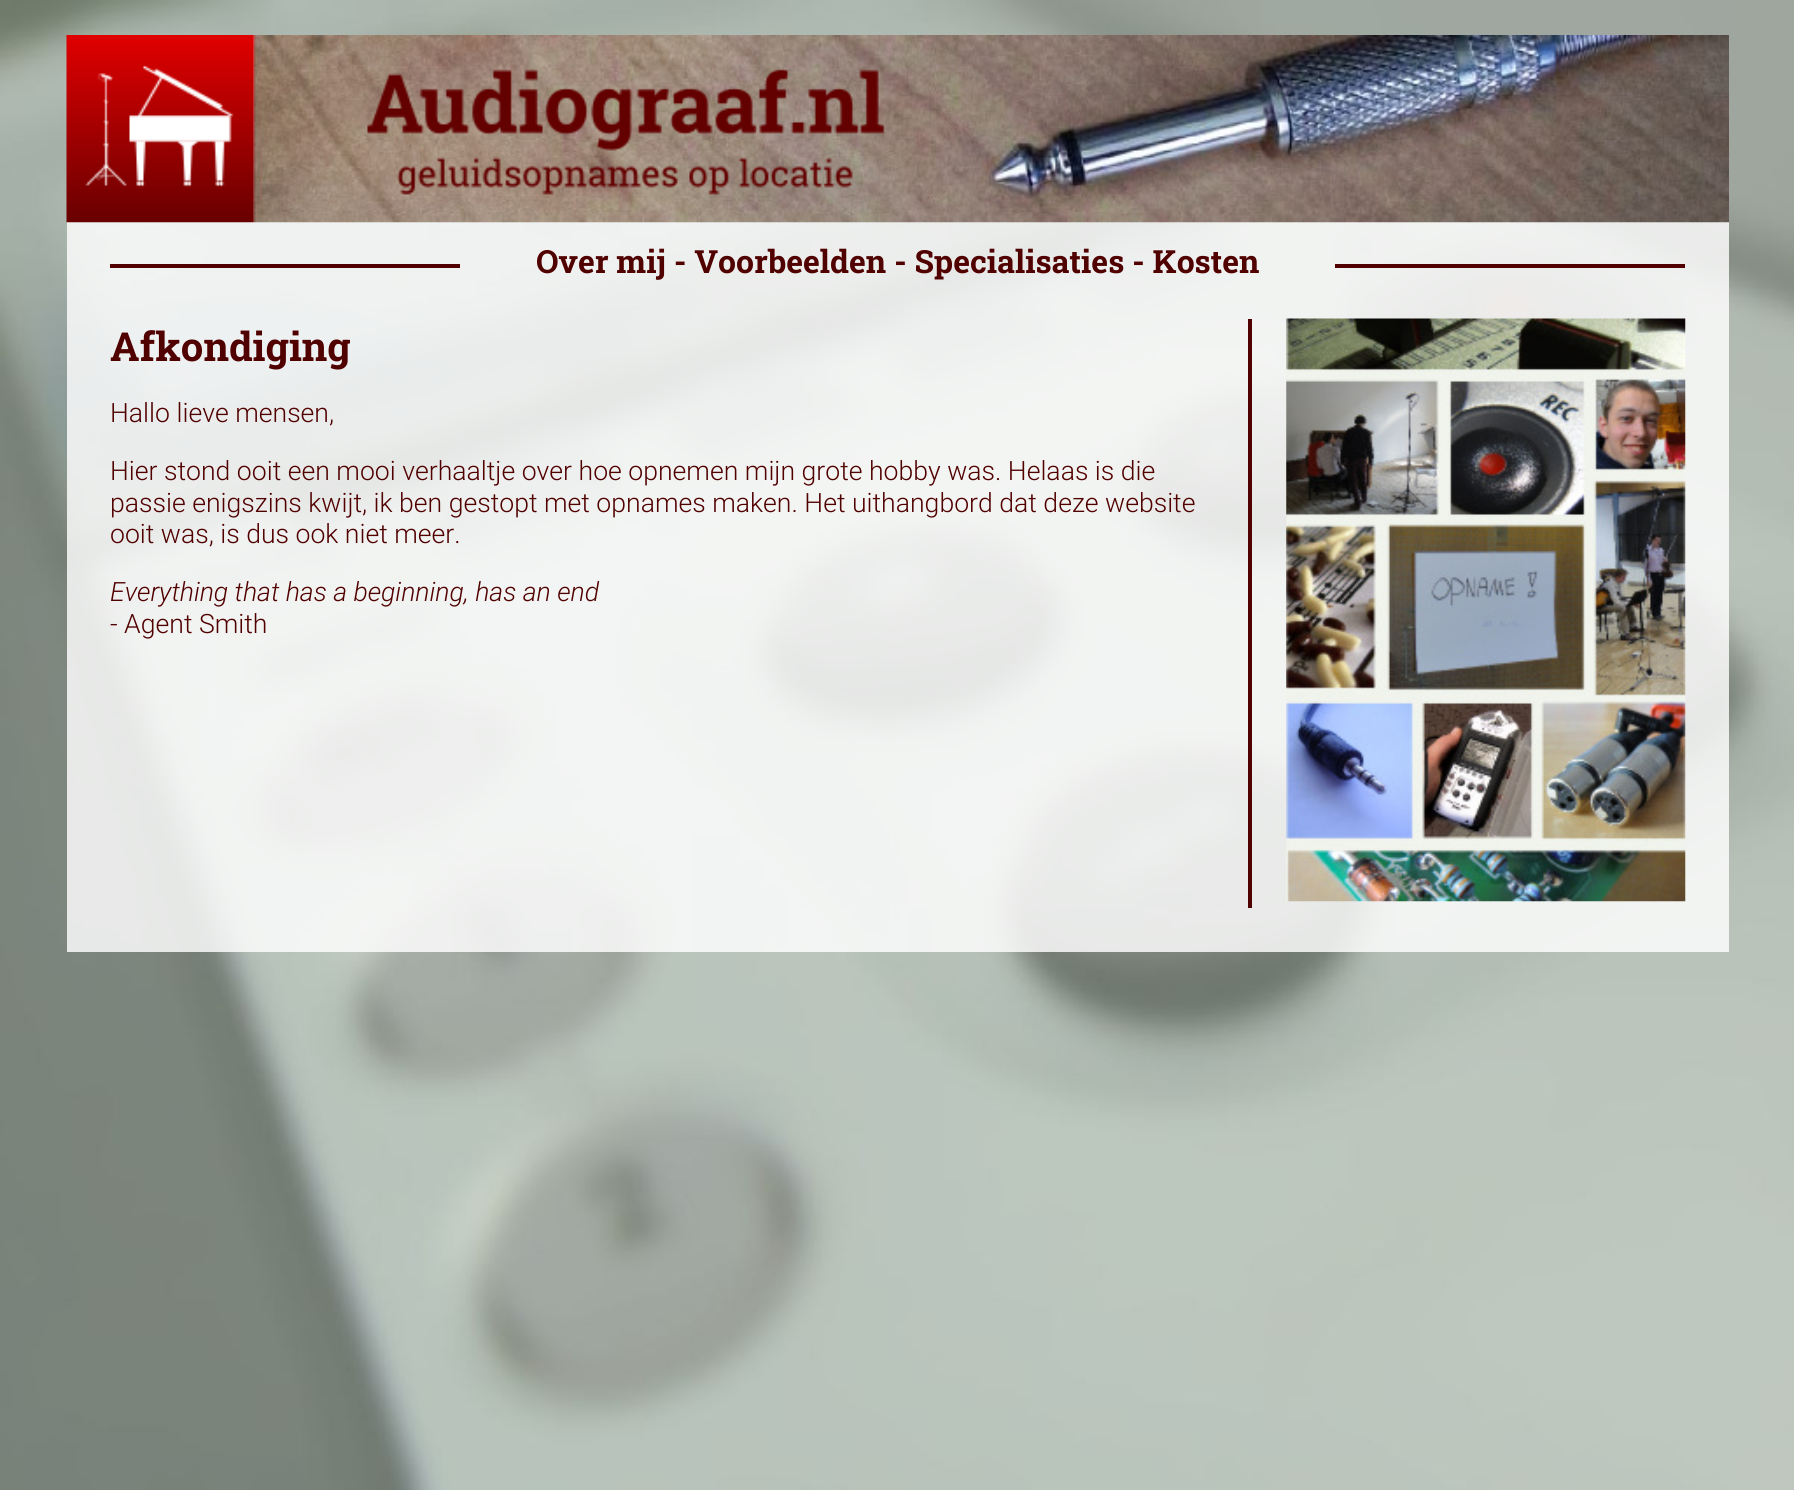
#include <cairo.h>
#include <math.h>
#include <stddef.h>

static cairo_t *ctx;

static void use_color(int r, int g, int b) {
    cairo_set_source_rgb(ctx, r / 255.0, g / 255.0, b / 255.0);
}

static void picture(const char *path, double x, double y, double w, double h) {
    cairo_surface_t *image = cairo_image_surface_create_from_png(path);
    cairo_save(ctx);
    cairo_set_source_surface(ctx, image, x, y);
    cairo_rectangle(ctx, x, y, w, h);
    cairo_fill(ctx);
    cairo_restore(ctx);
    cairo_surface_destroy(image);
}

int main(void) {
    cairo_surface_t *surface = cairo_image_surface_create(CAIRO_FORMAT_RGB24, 1794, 1490);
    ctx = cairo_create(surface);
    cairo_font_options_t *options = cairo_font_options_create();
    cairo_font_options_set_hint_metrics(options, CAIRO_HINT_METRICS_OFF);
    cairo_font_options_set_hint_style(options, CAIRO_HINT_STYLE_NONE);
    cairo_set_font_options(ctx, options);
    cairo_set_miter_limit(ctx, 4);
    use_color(255, 255, 255);
    cairo_paint(ctx);
    picture("img1.png", 0, 0, 1794, 1490);
    cairo_set_source_rgba(ctx, 1, 1, 1, 0.82);
    cairo_rectangle(ctx, 67, 35, 1662, 917);
    cairo_fill(ctx);
    picture("img2.png", 66, 35, 1663, 188);
    use_color(81, 0, 0);
    cairo_rectangle(ctx, 110, 264, 350, 4);
    cairo_fill(ctx);
    cairo_select_font_face(ctx, "Roboto Slab", CAIRO_FONT_SLANT_NORMAL, CAIRO_FONT_WEIGHT_BOLD);
    cairo_set_font_size(ctx, 31.9);
    cairo_move_to(ctx, 536, 273);
    cairo_show_text(ctx, "Over mij - Voorbeelden - Specialisaties - Kosten");
    cairo_rectangle(ctx, 1335, 264, 350, 4);
    cairo_fill(ctx);
    cairo_set_font_size(ctx, 40);
    cairo_move_to(ctx, 110, 361);
    cairo_show_text(ctx, "Afkondiging");
    cairo_select_font_face(ctx, "Roboto Light", CAIRO_FONT_SLANT_NORMAL, CAIRO_FONT_WEIGHT_NORMAL);
    cairo_set_font_size(ctx, 26.6);
    cairo_move_to(ctx, 110, 422);
    cairo_show_text(ctx, "Hallo lieve mensen,");
    cairo_move_to(ctx, 110, 480);
    cairo_show_text(ctx, "Hier stond ooit een mooi verhaaltje over hoe opnemen mijn grote hobby was. Helaas is die");
    cairo_move_to(ctx, 110, 512);
    cairo_show_text(ctx, "passie enigszins kwijt, ik ben gestopt met opnames maken. Het uithangbord dat deze website");
    cairo_move_to(ctx, 110, 543);
    cairo_show_text(ctx, "ooit was, is dus ook niet meer.");
    cairo_select_font_face(ctx, "Roboto Light", CAIRO_FONT_SLANT_ITALIC, CAIRO_FONT_WEIGHT_NORMAL);
    cairo_move_to(ctx, 110, 601);
    cairo_show_text(ctx, "Everything that has a beginning, has an end");
    cairo_select_font_face(ctx, "Roboto Light", CAIRO_FONT_SLANT_NORMAL, CAIRO_FONT_WEIGHT_NORMAL);
    cairo_move_to(ctx, 110, 633);
    cairo_show_text(ctx, "- Agent Smith");
    cairo_rectangle(ctx, 1248, 319, 4, 589);
    cairo_fill(ctx);
    picture("img3.png", 1286, 318, 400, 584);
    cairo_surface_write_to_png(surface, "result.png");
    cairo_font_options_destroy(options);
    cairo_destroy(ctx);
    cairo_surface_destroy(surface);
    return 0;
}
